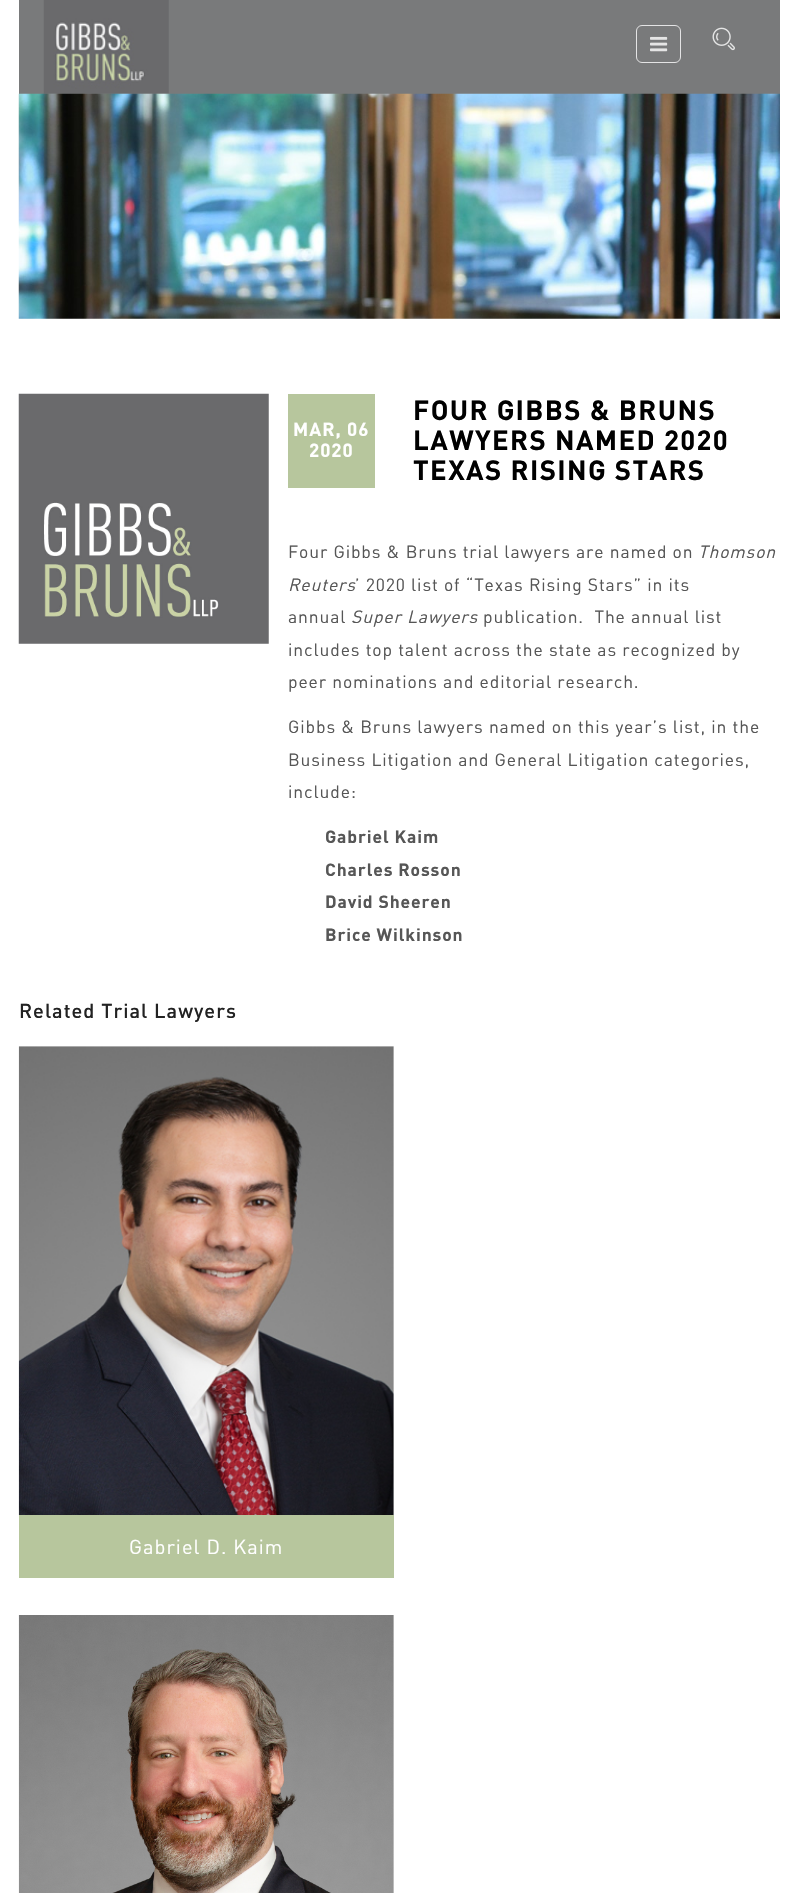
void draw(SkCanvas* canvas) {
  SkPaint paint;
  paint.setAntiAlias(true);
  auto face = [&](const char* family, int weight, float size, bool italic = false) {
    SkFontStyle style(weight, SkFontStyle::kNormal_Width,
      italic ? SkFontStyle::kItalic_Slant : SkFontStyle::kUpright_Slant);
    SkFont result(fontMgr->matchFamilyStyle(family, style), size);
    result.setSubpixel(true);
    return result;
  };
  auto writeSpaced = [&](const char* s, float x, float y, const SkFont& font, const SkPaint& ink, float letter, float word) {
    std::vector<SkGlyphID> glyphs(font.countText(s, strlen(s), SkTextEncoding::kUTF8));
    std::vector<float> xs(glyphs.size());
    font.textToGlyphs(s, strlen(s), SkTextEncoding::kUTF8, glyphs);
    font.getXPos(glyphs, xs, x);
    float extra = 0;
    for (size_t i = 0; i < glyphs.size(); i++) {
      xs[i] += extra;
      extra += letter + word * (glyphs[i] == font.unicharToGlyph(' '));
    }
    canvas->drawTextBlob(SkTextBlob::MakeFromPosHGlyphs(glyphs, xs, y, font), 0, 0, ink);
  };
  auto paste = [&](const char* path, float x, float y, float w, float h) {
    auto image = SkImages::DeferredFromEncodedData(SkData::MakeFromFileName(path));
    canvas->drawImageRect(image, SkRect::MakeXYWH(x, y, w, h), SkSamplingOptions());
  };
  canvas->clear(0xffffffff);
  paint.setColor(0xff797a7b);
  canvas->drawRect(SkRect::MakeXYWH(19, 0, 761, 94), paint);
  paste("img/1.png", 43, 0, 126, 94);
  paint.setStroke(true);
  paint.setStrokeWidth(1);
  paint.setColor(0xffe4e4e5);
  canvas->drawRoundRect(SkRect::MakeXYWH(636.5f, 25.5f, 44, 37), 5.5f, 5.5f, paint);
  paste("img/2.png", 650, 36, 18, 16);
  paste("img/3.png", 712, 27, 23, 24);
  paste("img/4.png", 18, 93, 762, 226);
  paste("img/5.png", 18, 393, 251, 251);
  paint.setStroke(false);
  paint.setColor(0xffb7c69d);
  canvas->drawRect(SkRect::MakeXYWH(288, 394, 87, 94), paint);
  paint.setColor(0xfff0f0f0);
  canvas->drawRect(SkRect::MakeXYWH(19, 1046, 375, 469), paint);
  paste("img/6.png", 18, 1046, 376, 469);
  paint.setColor(0xffb7c69d);
  canvas->drawRect(SkRect::MakeXYWH(19, 1515, 375, 63), paint);
  paint.setColor(0xfff0f0f0);
  canvas->drawRect(SkRect::MakeXYWH(393, 1615, 1, 278), paint);
  paste("img/7.png", 18, 1615, 376, 278);
  auto f0 = face("DIN", 700, 18.75f);
  paint.setColor(0xffffffff);
  writeSpaced("MAR, 06", 293, 436, f0, paint, 1, 0);
  writeSpaced("2020", 309, 457, f0, paint, 1, 0);
  auto f1 = face("DIN", 700, 27.5f);
  paint.setColor(0xff000000);
  {
    const struct { const char* s; float x, y; } items[] = {
      {"FOUR GIBBS & BRUNS", 413, 420},
      {"LAWYERS NAMED 2020", 413, 450},
      {"TEXAS RISING STARS", 413, 480},
    };
    for (auto [s, x, y] : items) {
      writeSpaced(s, x, y, f1, paint, 1.4f, 0);
    }
  }
  auto f2 = face("DIN", 400, 17.5f);
  paint.setColor(0xff565656);
  writeSpaced("Four Gibbs & Bruns trial lawyers are named on", 288, 558, f2, paint, 0.88f, 0);
  auto f3 = face("DIN", 400, 17.5f, true);
  writeSpaced("Thomson", 698, 558, f3, paint, 0.88f, 0);
  writeSpaced("Reuters", 288, 591, f3, paint, 0.88f, 0);
  writeSpaced("’ 2020 list of “Texas Rising Stars” in its", 355, 591, f2, paint, 0.88f, 0);
  writeSpaced("annual", 288, 623, f2, paint, 0.88f, 0);
  writeSpaced("Super Lawyers", 351, 623, f3, paint, 0.88f, 0);
  {
    const struct { const char* s; float x, y; } items[] = {
      {"publication.  The annual list", 483, 623},
      {"includes top talent across the state as recognized by", 288, 656},
      {"peer nominations and editorial research.", 288, 688},
      {"Gibbs & Bruns lawyers named on this year’s list, in the", 288, 733},
      {"Business Litigation and General Litigation categories,", 288, 766},
      {"include:", 288, 798},
    };
    for (auto [s, x, y] : items) {
      writeSpaced(s, x, y, f2, paint, 0.88f, 0);
    }
  }
  auto f4 = face("DIN", 700, 17.5f);
  {
    const struct { const char* s; float x, y; } items[] = {
      {"Gabriel Kaim", 325, 843},
      {"Charles Rosson", 325, 876},
      {"David Sheeren", 325, 908},
      {"Brice Wilkinson", 325, 941},
    };
    for (auto [s, x, y] : items) {
      writeSpaced(s, x, y, f4, paint, 0.88f, 0);
    }
  }
  auto f5 = face("DIN", 500, 20);
  paint.setColor(0xff222222);
  writeSpaced("Related Trial Lawyers", 19, 1018, f5, paint, 1, 0);
  auto f6 = face("DIN", 400, 20);
  paint.setColor(0xffffffff);
  writeSpaced("Gabriel D. Kaim", 129, 1554, f6, paint, 1, 0);
}
